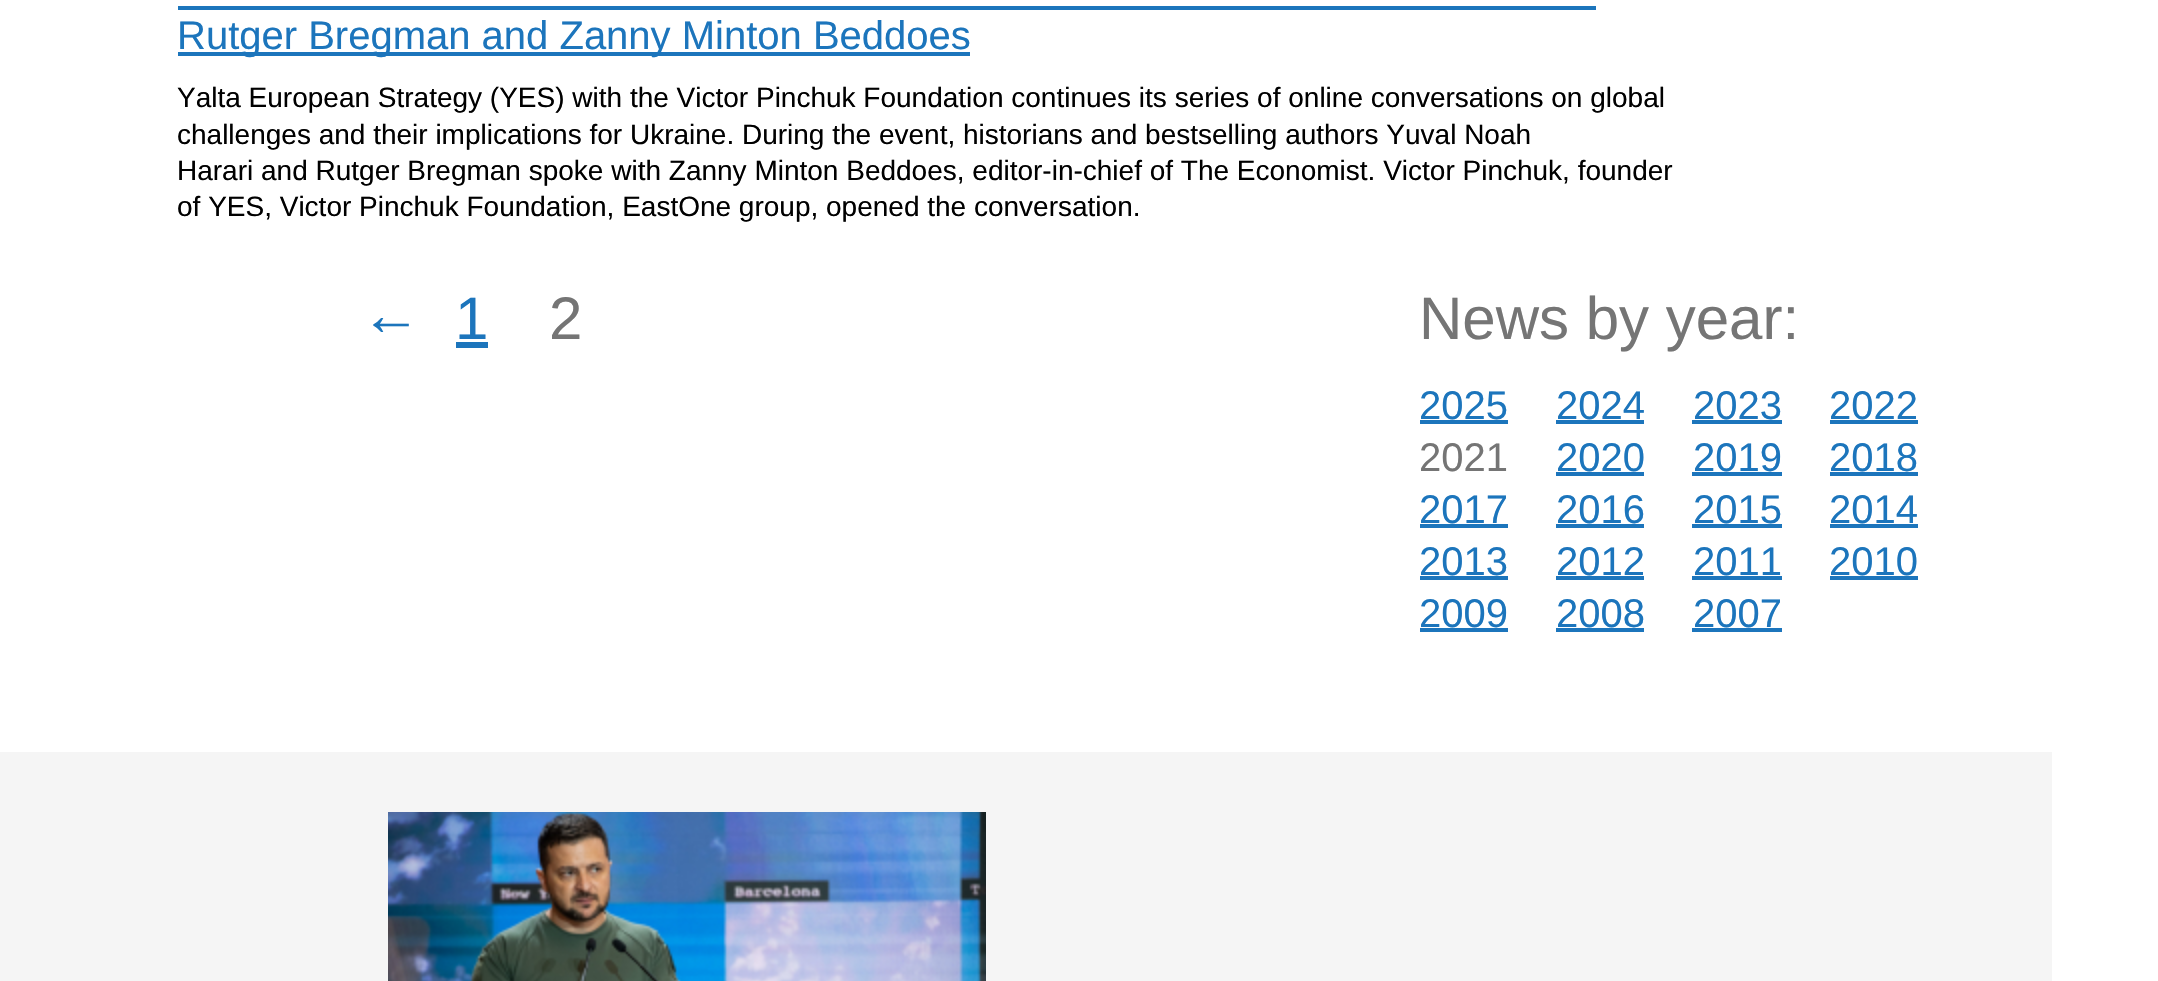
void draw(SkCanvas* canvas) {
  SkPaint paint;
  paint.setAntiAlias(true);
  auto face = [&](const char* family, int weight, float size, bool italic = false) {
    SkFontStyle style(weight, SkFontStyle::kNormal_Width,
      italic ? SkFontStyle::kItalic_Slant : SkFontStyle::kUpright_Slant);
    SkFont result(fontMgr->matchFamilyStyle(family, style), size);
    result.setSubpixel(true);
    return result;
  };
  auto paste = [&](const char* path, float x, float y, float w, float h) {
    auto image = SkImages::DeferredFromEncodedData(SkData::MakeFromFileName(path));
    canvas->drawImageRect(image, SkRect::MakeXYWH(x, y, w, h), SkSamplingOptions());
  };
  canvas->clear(0xffffffff);
  {
    const struct { float x, y, w, h; SkColor color; } items[] = {
      {178, 6, 1418, 4, 0xff1c75bc},
      {178, 52, 792, 4, 0xff1c75bc},
      {456, 342, 32, 6, 0xff1c75bc},
      {1420, 420, 88, 4, 0xff1c75bc},
      {1556, 420, 88, 4, 0xff1c75bc},
      {1692, 420, 90, 4, 0xff1c75bc},
      {1830, 420, 88, 4, 0xff1c75bc},
      {1556, 472, 88, 4, 0xff1c75bc},
      {1692, 472, 90, 4, 0xff1c75bc},
      {1830, 472, 88, 4, 0xff1c75bc},
      {1420, 524, 88, 4, 0xff1c75bc},
      {1556, 524, 88, 4, 0xff1c75bc},
      {1692, 524, 90, 4, 0xff1c75bc},
      {1830, 524, 88, 4, 0xff1c75bc},
      {1420, 576, 88, 4, 0xff1c75bc},
      {1556, 576, 88, 4, 0xff1c75bc},
      {1692, 576, 90, 4, 0xff1c75bc},
      {1830, 576, 88, 4, 0xff1c75bc},
      {1420, 628, 88, 4, 0xff1c75bc},
      {1556, 628, 88, 4, 0xff1c75bc},
      {1692, 628, 90, 4, 0xff1c75bc},
      {0, 752, 2052, 229, 0xfff5f5f5},
    };
    for (auto [x, y, w, h, color] : items) {
      paint.setColor(color);
      canvas->drawRect(SkRect::MakeXYWH(x, y, w, h), paint);
    }
  }
  paste("img/1.png", 388, 812, 598, 169);
  auto f0 = face("Liberation Sans", 400, 40);
  paint.setColor(0xff1c75bc);
  canvas->drawString("Rutger Bregman and Zanny Minton Beddoes", 177, 49, f0, paint);
  auto f1 = face("Liberation Sans", 400, 28);
  paint.setColor(0xff000000);
  {
    const struct { const char* s; float x, y; } items[] = {
      {"Yalta European Strategy (YES) with the Victor Pinchuk Foundation continues its series of online conversations on global", 177, 107},
      {"challenges and their implications for Ukraine. During the event, historians and bestselling authors Yuval Noah", 177, 144},
      {"Harari and Rutger Bregman spoke with Zanny Minton Beddoes, editor-in-chief of The Economist. Victor Pinchuk, founder", 177, 180},
      {"of YES, Victor Pinchuk Foundation, EastOne group, opened the conversation.", 177, 216},
    };
    for (auto [s, x, y] : items) {
      canvas->drawString(s, x, y, f1, paint);
    }
  }
  auto f2 = face("Liberation Sans", 700, 60);
  paint.setColor(0xff1c75bc);
  canvas->drawString("←", 361, 335, f2, paint);
  auto f3 = face("Liberation Sans", 400, 60);
  canvas->drawString("1", 455, 339, f3, paint);
  paint.setColor(0xff757575);
  canvas->drawString("2", 549, 339, f3, paint);
  canvas->drawString("News by year:", 1419, 339, f3, paint);
  paint.setColor(0xff1c75bc);
  {
    const struct { const char* s; float x, y; } items[] = {
      {"2025", 1419, 419},
      {"2024", 1556, 419},
      {"2023", 1693, 419},
      {"2022", 1829, 419},
    };
    for (auto [s, x, y] : items) {
      canvas->drawString(s, x, y, f0, paint);
    }
  }
  paint.setColor(0xff757575);
  canvas->drawString("2021", 1419, 471, f0, paint);
  paint.setColor(0xff1c75bc);
  {
    const struct { const char* s; float x, y; } items[] = {
      {"2020", 1556, 471},
      {"2019", 1693, 471},
      {"2018", 1829, 471},
      {"2017", 1419, 523},
      {"2016", 1556, 523},
      {"2015", 1693, 523},
      {"2014", 1829, 523},
      {"2013", 1419, 575},
      {"2012", 1556, 575},
      {"2011", 1693, 575},
      {"2010", 1829, 575},
      {"2009", 1419, 627},
      {"2008", 1556, 627},
      {"2007", 1693, 627},
    };
    for (auto [s, x, y] : items) {
      canvas->drawString(s, x, y, f0, paint);
    }
  }
}
